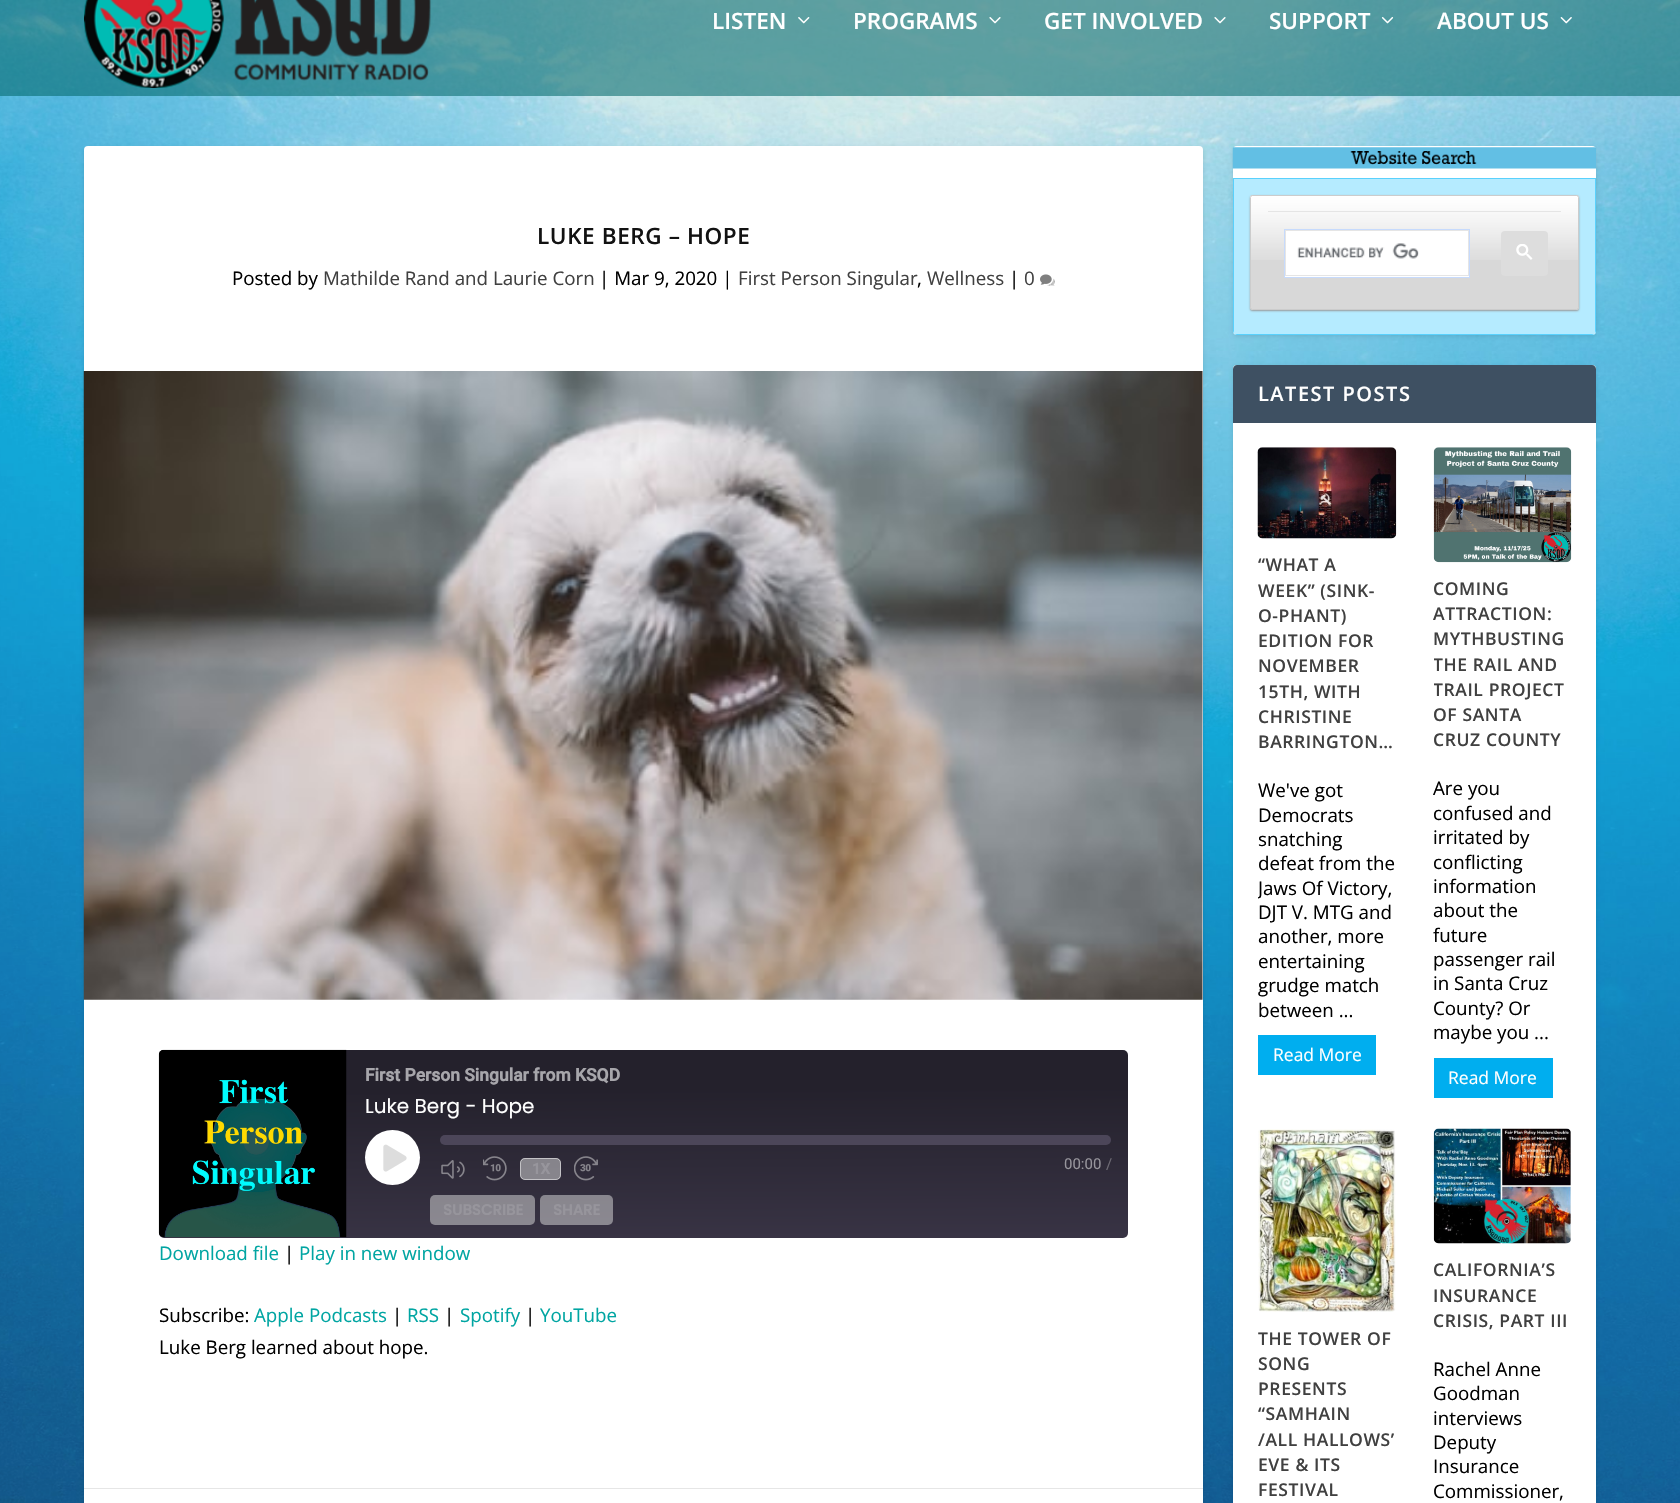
void draw(SkCanvas* canvas) {
  SkPaint paint;
  paint.setAntiAlias(true);
  auto face = [&](const char* family, int weight, float size, bool italic = false) {
    SkFontStyle style(weight, SkFontStyle::kNormal_Width,
      italic ? SkFontStyle::kItalic_Slant : SkFontStyle::kUpright_Slant);
    SkFont result(fontMgr->matchFamilyStyle(family, style), size);
    result.setSubpixel(true);
    return result;
  };
  auto writeSpaced = [&](const char* s, float x, float y, const SkFont& font, const SkPaint& ink, float letter, float word) {
    std::vector<SkGlyphID> glyphs(font.countText(s, strlen(s), SkTextEncoding::kUTF8));
    std::vector<float> xs(glyphs.size());
    font.textToGlyphs(s, strlen(s), SkTextEncoding::kUTF8, glyphs);
    font.getXPos(glyphs, xs, x);
    float extra = 0;
    for (size_t i = 0; i < glyphs.size(); i++) {
      xs[i] += extra;
      extra += letter + word * (glyphs[i] == font.unicharToGlyph(' '));
    }
    canvas->drawTextBlob(SkTextBlob::MakeFromPosHGlyphs(glyphs, xs, y, font), 0, 0, ink);
  };
  auto paste = [&](const char* path, float x, float y, float w, float h) {
    auto image = SkImages::DeferredFromEncodedData(SkData::MakeFromFileName(path));
    canvas->drawImageRect(image, SkRect::MakeXYWH(x, y, w, h), SkSamplingOptions());
  };
  auto shape = [&](const char* data, bool evenOdd = false) {
    SkPath result = *SkParsePath::FromSVGString(data);
    if (evenOdd) result.setFillType(SkPathFillType::kEvenOdd);
    return result;
  };
  canvas->clear(0xffffffff);
  paste("img/1.png", 0, 0, 1680, 1503);
  paint.setColor(0x8f006668);
  canvas->drawRect(SkRect::MakeXYWH(0, 0, 1680, 96), paint);
  paste("img/2.png", 84, 0, 347, 88);
  paste("img/3.png", 798, 17, 12, 7);
  paste("img/4.png", 989, 17, 12, 7);
  paste("img/5.png", 1214, 17, 12, 7);
  paste("img/6.png", 1381, 17, 13, 7);
  paste("img/7.png", 1560, 17, 12, 7);
  paint.setColor(0x1a000000);
  paint.setMaskFilter(SkMaskFilter::MakeBlur(kNormal_SkBlurStyle, 2));
  canvas->drawRoundRect(SkRect::MakeXYWH(84, 148, 1119, 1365), 4, 4, paint);
  paint.setMaskFilter(nullptr);
  paint.setColor(0xffffffff);
  canvas->drawRoundRect(SkRect::MakeXYWH(84, 146, 1119, 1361), 4, 4, paint);
  paste("img/8.png", 1040, 274, 15, 12);
  paste("img/9.png", 83, 371, 1120, 629);
  {
    const SkColor colors[] = {0xff383344, 0xff24212c};
    const float stops[] = {0.01f, 0.78f};
    const SkPoint ends[] = {{644, 1240}, {643, 1047}};
    paint.setShader(SkGradientShader::MakeLinear(ends, colors, stops, 2, SkTileMode::kClamp));
    paint.setAlpha(255);
  }
  canvas->drawRoundRect(SkRect::MakeXYWH(159, 1050, 969, 188), 5, 5, paint);
  paste("img/10.png", 158, 1049, 189, 189);
  paint.setShader(nullptr);
  paint.setColor(0xffffffff);
  canvas->drawCircle(392.5f, 1157.5f, 27.5f, paint);
  paste("img/11.png", 383, 1144, 24, 28);
  paint.setColor(0xff4c4659);
  canvas->drawRoundRect(SkRect::MakeXYWH(440, 1135, 671, 10), 5, 5, paint);
  paste("img/12.png", 441, 1160, 24, 19);
  paste("img/13.png", 483, 1156, 24, 25);
  paint.setColor(0x80dddddd);
  canvas->drawRoundRect(SkRect::MakeXYWH(520, 1158, 41, 22), 5, 5, paint);
  paint.setStroke(true);
  paint.setStrokeWidth(1);
  paint.setColor(0x80ffffff);
  canvas->drawRoundRect(SkRect::MakeXYWH(520.5f, 1158.5f, 40, 21), 4.5f, 4.5f, paint);
  paste("img/14.png", 574, 1156, 24, 25);
  paint.setStroke(false);
  paint.setColor(0x80dddddd);
  canvas->drawRoundRect(SkRect::MakeXYWH(430, 1195, 105, 30), 5, 5, paint);
  canvas->drawRoundRect(SkRect::MakeXYWH(540, 1195, 73, 30), 5, 5, paint);
  paint.setColor(0xffe6e6e6);
  canvas->drawRect(SkRect::MakeXYWH(84, 1488, 1119, 1), paint);
  paint.setColor(0x1a000000);
  paint.setMaskFilter(SkMaskFilter::MakeBlur(kNormal_SkBlurStyle, 2));
  canvas->drawRoundRect(SkRect::MakeXYWH(1233, 148, 363, 188), 4, 4, paint);
  paint.setMaskFilter(nullptr);
  paint.setColor(0xffffffff);
  canvas->drawRoundRect(SkRect::MakeXYWH(1233, 146, 363, 189), 4, 4, paint);
  paste("img/15.png", 1232, 147, 364, 22);
  paint.setColor(0xffb5ebff);
  canvas->drawPath(shape("M1233 178H1596V331C1596 333 1594 335 1592 335H1237C1235 335 1233 333 1233 331Z"), paint);
  paint.setColor(0xff59d1fd);
  canvas->drawPath(shape("M1234 179H1595V334L1596 331V178H1233V331L1234 334ZM1592 335L1595 334H1234L1237 335Z", true), paint);
  paint.setColor(0xff999999);
  paint.setMaskFilter(SkMaskFilter::MakeBlur(kNormal_SkBlurStyle, 1));
  canvas->drawRoundRect(SkRect::MakeXYWH(1250, 196, 329, 115), 2.5f, 2.5f, paint);
  paint.setMaskFilter(nullptr);
  paint.setColor(0xffd8d8d8);
  canvas->drawRoundRect(SkRect::MakeXYWH(1250, 195, 329, 115), 2.5f, 2.5f, paint);
  paste("img/16.png", 1250, 196, 329, 64);
  paint.setStroke(true);
  paint.setColor(0xffcccccc);
  canvas->drawRoundRect(SkRect::MakeXYWH(1250.5f, 195.5f, 328, 114), 2, 2, paint);
  paint.setStroke(false);
  paint.setColor(0xffe5e5e5);
  canvas->drawRect(SkRect::MakeXYWH(1268, 211, 293, 1), paint);
  paint.setColor(0xffdddddd);
  canvas->drawRoundRect(SkRect::MakeXYWH(1501, 231, 47, 45), 4, 4, paint);
  paste("img/17.png", 1516, 244, 17, 16);
  paint.setColor(0xffffffff);
  canvas->drawRect(SkRect::MakeXYWH(1285, 231, 184, 46), paint);
  paint.setStroke(true);
  paint.setColor(0xffc6dafc);
  canvas->drawRect(SkRect::MakeXYWH(1284.5f, 229.5f, 185, 48), paint);
  paint.setStroke(false);
  {
    const struct { float x, y, w, h; SkColor color; } items[] = {
      {1285, 230, 184, 1, 0xffe5e5e5},
      {1468, 230, 1, 46, 0xffe5e5e5},
      {1285, 275, 184, 1, 0xffe5e5e5},
      {1285, 230, 1, 46, 0xffe5e5e5},
    };
    for (auto [x, y, w, h, color] : items) {
      paint.setColor(color);
      canvas->drawRect(SkRect::MakeXYWH(x, y, w, h), paint);
    }
  }
  paste("img/18.png", 1297, 243, 122, 16);
  paint.setColor(0x1a000000);
  paint.setMaskFilter(SkMaskFilter::MakeBlur(kNormal_SkBlurStyle, 2));
  canvas->drawRoundRect(SkRect::MakeXYWH(1233, 366, 363, 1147), 4, 4, paint);
  paint.setMaskFilter(nullptr);
  paint.setColor(0xffffffff);
  canvas->drawRoundRect(SkRect::MakeXYWH(1233, 365, 363, 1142), 4, 4, paint);
  paint.setColor(0xff3e5062);
  canvas->drawPath(shape("M1237 365H1592C1594 365 1596 367 1596 369V423H1233V369C1233 367 1235 365 1237 365Z"), paint);
  paste("img/19.png", 1257, 447, 140, 92);
  paint.setColor(0xff00aeef);
  canvas->drawRect(SkRect::MakeXYWH(1258, 1035, 118, 40), paint);
  paste("img/20.png", 1433, 447, 139, 116);
  canvas->drawRect(SkRect::MakeXYWH(1434, 1058, 119, 40), paint);
  paste("img/21.png", 1258, 1129, 138, 183);
  paste("img/22.png", 1433, 1128, 138, 116);
  auto f0 = face("Open Sans", 600, 22.5f);
  paint.setColor(0xffffffff);
  {
    const struct { const char* s; float x, y; } items[] = {
      {"LISTEN", 712, 29},
      {"PROGRAMS", 853, 29},
      {"GET INVOLVED", 1044, 29},
      {"SUPPORT", 1269, 29},
      {"ABOUT US", 1437, 29},
    };
    for (auto [s, x, y] : items) {
      canvas->drawString(s, x, y, f0, paint);
    }
  }
  paint.setColor(0xff121212);
  writeSpaced("LUKE BERG – HOPE", 537, 244, f0, paint, 0.6f, 0);
  auto f1 = face("Open Sans", 400, 18.75f);
  paint.setColor(0xff000000);
  canvas->drawString("Posted by", 232, 285, f1, paint);
  paint.setColor(0xff404040);
  canvas->drawString("Mathilde Rand and Laurie Corn", 323, 285, f1, paint);
  paint.setColor(0xff000000);
  canvas->drawString("| Mar 9, 2020 |", 599, 285, f1, paint);
  paint.setColor(0xff404040);
  canvas->drawString("First Person Singular", 738, 285, f1, paint);
  paint.setColor(0xff000000);
  canvas->drawString(",", 917, 285, f1, paint);
  paint.setColor(0xff404040);
  canvas->drawString("Wellness", 927, 285, f1, paint);
  paint.setColor(0xff000000);
  canvas->drawString("|", 1009, 285, f1, paint);
  paint.setColor(0xff404040);
  canvas->drawString("0", 1024, 285, f1, paint);
  auto f2 = face("Roboto", 700, 17.5f);
  paint.setColor(0xffa7a6ab);
  canvas->drawString("First Person Singular from KSQD", 365, 1081, f2, paint);
  auto f3 = face("Poppins", 400, 20);
  paint.setColor(0xffffffff);
  canvas->drawString("Luke Berg - Hope", 365, 1113, f3, paint);
  auto f4 = face("Roboto", 700, 15);
  paint.setColor(0xff97959c);
  canvas->drawString("1X", 532, 1174, f4, paint);
  auto f5 = face("Roboto", 400, 15);
  canvas->drawString("00:00", 1064, 1169, f5, paint);
  paint.setColor(0xff6d6a74);
  canvas->drawString("/", 1106, 1169, f5, paint);
  auto f6 = face("Poppins", 700, 15);
  paint.setColor(0xff97959c);
  canvas->drawString("SUBSCRIBE", 443, 1215, f6, paint);
  canvas->drawString("SHARE", 553, 1215, f6, paint);
  paint.setColor(0xff00a5a2);
  canvas->drawString("Download file", 159, 1260, f1, paint);
  paint.setColor(0xff000000);
  canvas->drawString("|", 284, 1260, f1, paint);
  paint.setColor(0xff00a5a2);
  canvas->drawString("Play in new window", 299, 1260, f1, paint);
  paint.setColor(0xff000000);
  canvas->drawString("Subscribe:", 159, 1322, f1, paint);
  paint.setColor(0xff00a5a2);
  canvas->drawString("Apple Podcasts", 254, 1322, f1, paint);
  paint.setColor(0xff000000);
  canvas->drawString("|", 392, 1322, f1, paint);
  paint.setColor(0xff00a5a2);
  canvas->drawString("RSS", 407, 1322, f1, paint);
  paint.setColor(0xff000000);
  canvas->drawString("|", 444, 1322, f1, paint);
  paint.setColor(0xff00a5a2);
  canvas->drawString("Spotify", 460, 1322, f1, paint);
  paint.setColor(0xff000000);
  canvas->drawString("|", 525, 1322, f1, paint);
  paint.setColor(0xff00a5a2);
  canvas->drawString("YouTube", 540, 1322, f1, paint);
  paint.setColor(0xff000000);
  canvas->drawString("Luke Berg learned about hope.", 159, 1354, f1, paint);
  auto f7 = face("Open Sans", 600, 20);
  paint.setColor(0xffffffff);
  writeSpaced("LATEST POSTS", 1258, 401, f7, paint, 1.5f, 0);
  auto f8 = face("Open Sans", 600, 17.5f);
  paint.setColor(0xff404040);
  {
    const struct { const char* s; float x, y; } items[] = {
      {"“WHAT A", 1258, 571},
      {"WEEK” (SINK-", 1258, 597},
      {"O-PHANT)", 1258, 622},
      {"EDITION FOR", 1258, 647},
      {"NOVEMBER", 1258, 672},
      {"15TH, WITH", 1258, 698},
      {"CHRISTINE", 1258, 723},
      {"BARRINGTON…", 1258, 748},
    };
    for (auto [s, x, y] : items) {
      writeSpaced(s, x, y, f8, paint, 0.6f, 0);
    }
  }
  paint.setColor(0xff000000);
  {
    const struct { const char* s; float x, y; } items[] = {
      {"We've got", 1258, 797},
      {"Democrats", 1258, 822},
      {"snatching", 1258, 846},
      {"defeat from the", 1258, 870},
    };
    for (auto [s, x, y] : items) {
      canvas->drawString(s, x, y, f1, paint);
    }
  }
  canvas->save();
  canvas->clipRect(SkRect::MakeXYWH(1258, 448, 138, 640));
  canvas->drawString("Jaws Of Victory,", 1258, 895, f1, paint);
  canvas->restore();
  {
    const struct { const char* s; float x, y; } items[] = {
      {"DJT V. MTG and", 1258, 919},
      {"another, more", 1258, 943},
      {"entertaining", 1258, 968},
      {"grudge match", 1258, 992},
      {"between ...", 1258, 1017},
    };
    for (auto [s, x, y] : items) {
      canvas->drawString(s, x, y, f1, paint);
    }
  }
  auto f9 = face("Open Sans", 400, 17.5f);
  paint.setColor(0xffffffff);
  canvas->drawString("Read More", 1273, 1061, f9, paint);
  paint.setColor(0xff404040);
  {
    const struct { const char* s; float x, y; } items[] = {
      {"COMING", 1433, 595},
      {"ATTRACTION:", 1433, 620},
      {"MYTHBUSTING", 1433, 645},
    };
    for (auto [s, x, y] : items) {
      writeSpaced(s, x, y, f8, paint, 0.6f, 0);
    }
  }
  canvas->save();
  canvas->clipRect(SkRect::MakeXYWH(1434, 448, 137, 662));
  writeSpaced("THE RAIL AND", 1433, 671, f8, paint, 0.6f, 0);
  writeSpaced("TRAIL PROJECT", 1433, 696, f8, paint, 0.6f, 0);
  canvas->restore();
  writeSpaced("OF SANTA", 1433, 721, f8, paint, 0.6f, 0);
  writeSpaced("CRUZ COUNTY", 1433, 746, f8, paint, 0.6f, 0);
  paint.setColor(0xff000000);
  {
    const struct { const char* s; float x, y; } items[] = {
      {"Are you", 1433, 795},
      {"confused and", 1433, 820},
      {"irritated by", 1433, 844},
      {"conflicting", 1433, 869},
      {"information", 1433, 893},
      {"about the", 1433, 917},
      {"future", 1433, 942},
      {"passenger rail", 1433, 966},
      {"in Santa Cruz", 1433, 990},
      {"County? Or", 1433, 1015},
      {"maybe you ...", 1433, 1039},
    };
    for (auto [s, x, y] : items) {
      canvas->drawString(s, x, y, f1, paint);
    }
  }
  paint.setColor(0xffffffff);
  canvas->drawString("Read More", 1448, 1084, f9, paint);
  paint.setColor(0xff404040);
  {
    const struct { const char* s; float x, y; } items[] = {
      {"THE TOWER OF", 1258, 1345},
      {"SONG", 1258, 1370},
      {"PRESENTS", 1258, 1395},
      {"“SAMHAIN", 1258, 1420},
      {"/ALL HALLOWS’", 1258, 1446},
      {"EVE & ITS", 1258, 1471},
      {"FESTIVAL", 1258, 1496},
      {"CALIFORNIA’S", 1433, 1276},
      {"INSURANCE", 1433, 1302},
      {"CRISIS, PART III", 1433, 1327},
    };
    for (auto [s, x, y] : items) {
      writeSpaced(s, x, y, f8, paint, 0.6f, 0);
    }
  }
  paint.setColor(0xff000000);
  {
    const struct { const char* s; float x, y; } items[] = {
      {"Rachel Anne", 1433, 1376},
      {"Goodman", 1433, 1400},
      {"interviews", 1433, 1425},
      {"Deputy", 1433, 1449},
      {"Insurance", 1433, 1473},
      {"Commissioner,", 1433, 1498},
    };
    for (auto [s, x, y] : items) {
      canvas->drawString(s, x, y, f1, paint);
    }
  }
}
